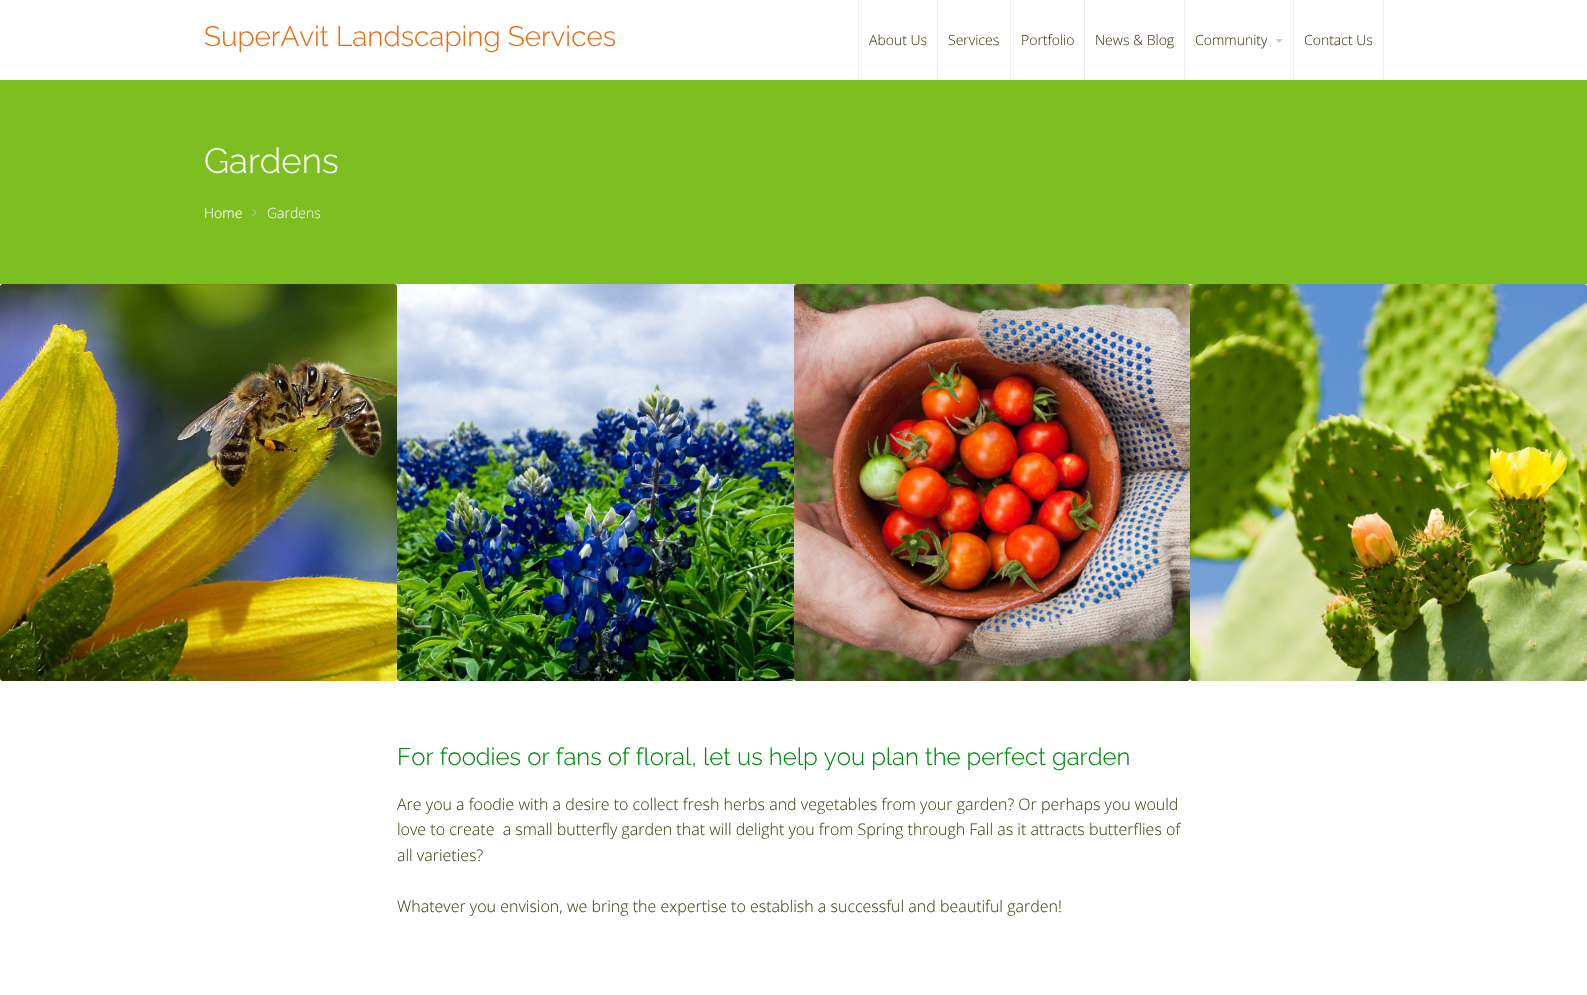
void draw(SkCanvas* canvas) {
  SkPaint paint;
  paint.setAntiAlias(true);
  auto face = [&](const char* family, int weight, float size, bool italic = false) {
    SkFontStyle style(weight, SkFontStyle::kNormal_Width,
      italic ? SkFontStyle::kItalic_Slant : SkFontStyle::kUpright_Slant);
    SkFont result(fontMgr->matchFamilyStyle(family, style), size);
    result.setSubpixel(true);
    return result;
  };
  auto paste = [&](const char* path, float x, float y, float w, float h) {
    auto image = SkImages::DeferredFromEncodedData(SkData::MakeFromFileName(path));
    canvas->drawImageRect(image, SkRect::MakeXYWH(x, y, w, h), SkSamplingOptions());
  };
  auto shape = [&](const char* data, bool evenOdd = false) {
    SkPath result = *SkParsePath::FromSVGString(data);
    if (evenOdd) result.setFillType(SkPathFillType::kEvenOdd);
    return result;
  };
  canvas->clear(0xffffffff);
  {
    const struct { float x, y, w, h; SkColor color; } items[] = {
      {1383, 0, 1, 80, 0xffeeeeee},
      {858, 0, 1, 80, 0xffeeeeee},
      {937, 0, 1, 80, 0xffeeeeee},
      {1010, 0, 1, 80, 0xffeeeeee},
      {1084, 0, 1, 80, 0xffeeeeee},
      {1184, 0, 1, 80, 0xffeeeeee},
    };
    for (auto [x, y, w, h, color] : items) {
      paint.setColor(color);
      canvas->drawRect(SkRect::MakeXYWH(x, y, w, h), paint);
    }
  }
  paint.setColor(0xffcfcfcf);
  canvas->drawPath(shape("M1275 39H1283L1279 43Z"), paint);
  paint.setColor(0xffeeeeee);
  canvas->drawRect(SkRect::MakeXYWH(1293, 0, 1, 80), paint);
  paint.setColor(0xff7dbe21);
  canvas->drawRect(SkRect::MakeXYWH(0, 80, 1587, 204), paint);
  paste("img/1.png", 252, 208, 5, 9);
  paste("img/2.png", 0, 284, 397, 397);
  paste("img/3.png", 397, 284, 397, 397);
  paste("img/4.png", 794, 284, 396, 397);
  paste("img/5.png", 1190, 284, 397, 397);
  auto f0 = face("Raleway", 100, 28);
  paint.setColor(0xffed690e);
  canvas->drawString("SuperAvit Landscaping Services", 204, 46, f0, paint);
  auto f1 = face("Open Sans", 300, 14);
  paint.setColor(0xff494122);
  {
    const struct { const char* s; float x, y; } items[] = {
      {"About Us", 869, 45},
      {"Services", 948, 45},
      {"Portfolio", 1021, 45},
      {"News & Blog", 1095, 45},
      {"Community", 1195, 45},
      {"Contact Us", 1304, 45},
    };
    for (auto [s, x, y] : items) {
      canvas->drawString(s, x, y, f1, paint);
    }
  }
  auto f2 = face("Raleway", 100, 35);
  paint.setColor(0xffffffff);
  canvas->drawString("Gardens", 204, 173, f2, paint);
  canvas->drawString("Home", 204, 218, f1, paint);
  paint.setColor(0xffeeeeee);
  canvas->drawString("Gardens", 267, 218, f1, paint);
  auto f3 = face("Raleway", 100, 24);
  paint.setColor(0xff00880a);
  canvas->drawString("For foodies or fans of floral, let us help you plan the perfect garden", 397, 765, f3, paint);
  auto f4 = face("Open Sans", 300, 16);
  paint.setColor(0xff49491f);
  {
    const struct { const char* s; float x, y; } items[] = {
      {"Are you a foodie with a desire to collect fresh herbs and vegetables from your garden? Or perhaps you would", 397, 810},
      {"love to create  a small butterfly garden that will delight you from Spring through Fall as it attracts butterflies of", 397, 835},
      {"all varieties?", 397, 861},
      {"Whatever you envision, we bring the expertise to establish a successful and beautiful garden!", 397, 912},
    };
    for (auto [s, x, y] : items) {
      canvas->drawString(s, x, y, f4, paint);
    }
  }
}
